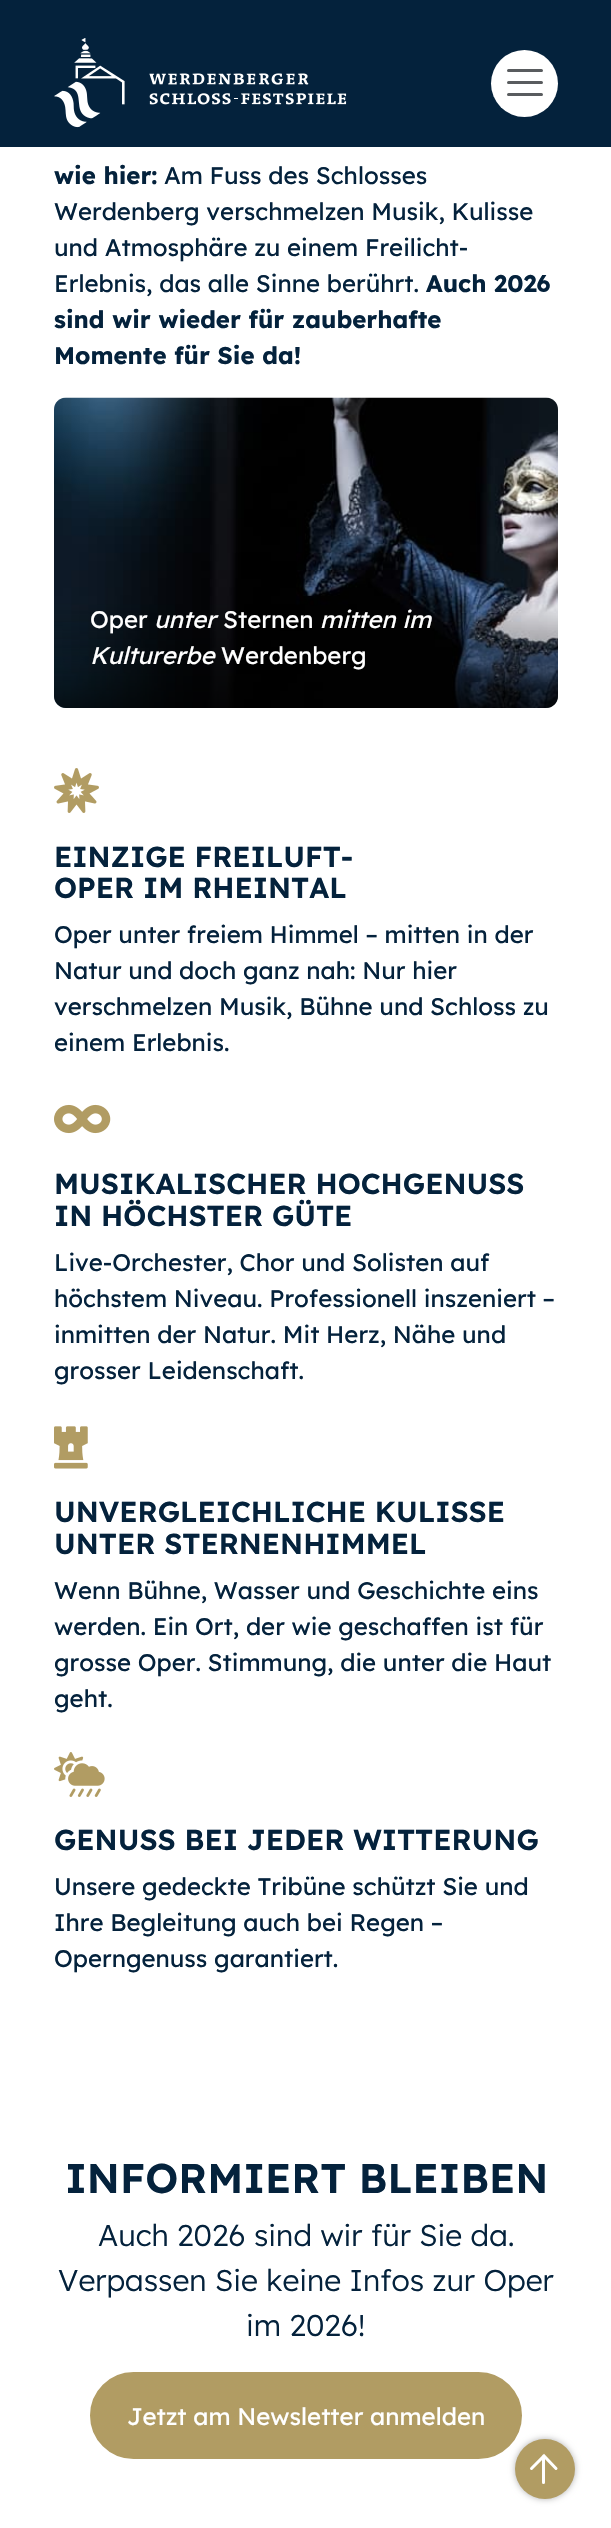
void draw(SkCanvas* canvas) {
  SkPaint paint;
  paint.setAntiAlias(true);
  auto face = [&](const char* family, int weight, float size, bool italic = false) {
    SkFontStyle style(weight, SkFontStyle::kNormal_Width,
      italic ? SkFontStyle::kItalic_Slant : SkFontStyle::kUpright_Slant);
    SkFont result(fontMgr->matchFamilyStyle(family, style), size);
    result.setSubpixel(true);
    return result;
  };
  auto paste = [&](const char* path, float x, float y, float w, float h) {
    auto image = SkImages::DeferredFromEncodedData(SkData::MakeFromFileName(path));
    canvas->drawImageRect(image, SkRect::MakeXYWH(x, y, w, h), SkSamplingOptions());
  };
  auto shape = [&](const char* data, bool evenOdd = false) {
    SkPath result = *SkParsePath::FromSVGString(data);
    if (evenOdd) result.setFillType(SkPathFillType::kEvenOdd);
    return result;
  };
  canvas->clear(0xffffffff);
  paint.setColor(0xff04223c);
  canvas->drawRect(SkRect::MakeXYWH(0, 0, 611, 147), paint);
  paste("img/1.png", 54, 38, 293, 90);
  paint.setColor(0xffffffff);
  canvas->drawCircle(524.5f, 83.5f, 33.5f, paint);
  paint.setStroke(true);
  paint.setStrokeWidth(3);
  paint.setStrokeCap(SkPaint::kRound_Cap);
  paint.setColor(0xff595c5f);
  canvas->drawPath(shape("M508.5 70.5H541.5M508.5 82.5H541.5M508.5 94.5H541.5"), paint);
  paste("img/2.png", 54, 397, 504, 311);
  paint.setStroke(false);
  {
    const SkColor colors[] = {0x00000000, 0xb3000000};
    const float stops[] = {0.05f, 1};
    const SkPoint ends[] = {{306, 594}, {306, 708}};
    paint.setShader(SkGradientShader::MakeLinear(ends, colors, stops, 2, SkTileMode::kClamp));
    paint.setAlpha(255);
  }
  canvas->drawPath(shape("M54 594H558V696C558 702.5 552.5 708 546 708H66C59.5 708 54 702.5 54 696Z"), paint);
  paste("img/3.png", 54, 768, 45, 45);
  paste("img/4.png", 54, 1104, 57, 30);
  paste("img/5.png", 54, 1426, 34, 43);
  paste("img/6.png", 54, 1752, 51, 45);
  paint.setShader(nullptr);
  paint.setColor(0xffb19c63);
  canvas->drawRoundRect(SkRect::MakeXYWH(91, 2373, 430, 85), 42.5f, 42.5f, paint);
  paint.setStroke(true);
  paint.setStrokeWidth(2);
  paint.setStrokeCap(SkPaint::kButt_Cap);
  canvas->drawRoundRect(SkRect::MakeXYWH(91, 2373, 430, 85), 42.5f, 42.5f, paint);
  paint.setStroke(false);
  paint.setColor(0x4d000000);
  paint.setMaskFilter(SkMaskFilter::MakeBlur(kNormal_SkBlurStyle, 3));
  canvas->drawRoundRect(SkRect::MakeXYWH(515, 2439, 60, 60), 30, 30, paint);
  paint.setMaskFilter(nullptr);
  paint.setColor(0xffb19c63);
  canvas->drawCircle(545, 2469, 30, paint);
  paint.setStroke(true);
  paint.setStrokeWidth(3);
  paint.setStrokeCap(SkPaint::kRound_Cap);
  paint.setColor(0xffffffff);
  canvas->drawPath(shape("M531.5 2468.5L544 2456L556 2468.5M543.5 2456V2482.5"), paint);
  auto f0 = face("Lexend", 700, 24);
  paint.setStroke(false);
  paint.setColor(0xff04223c);
  canvas->drawString("wie hier:", 54, 184, f0, paint);
  auto f1 = face("Lexend", 400, 24);
  {
    const struct { const char* s; float x, y; } items[] = {
      {"Am Fuss des Schlosses", 164, 184},
      {"Werdenberg verschmelzen Musik, Kulisse", 54, 220},
      {"und Atmosphäre zu einem Freilicht-", 54, 256},
      {"Erlebnis, das alle Sinne berührt.", 54, 292},
    };
    for (auto [s, x, y] : items) {
      canvas->drawString(s, x, y, f1, paint);
    }
  }
  {
    const struct { const char* s; float x, y; } items[] = {
      {"Auch 2026", 426, 292},
      {"sind wir wieder für zauberhafte", 54, 328},
      {"Momente für Sie da!", 54, 364},
    };
    for (auto [s, x, y] : items) {
      canvas->drawString(s, x, y, f0, paint);
    }
  }
  paint.setColor(0xffffffff);
  canvas->drawString("Oper", 90, 628, f1, paint);
  auto f2 = face("Lexend", 400, 24, true);
  canvas->drawString("unter", 154, 628, f2, paint);
  canvas->drawString("Sternen", 223, 628, f1, paint);
  canvas->drawString("mitten im", 320, 628, f2, paint);
  canvas->drawString("Kulturerbe", 90, 664, f2, paint);
  canvas->drawString("Werdenberg", 221, 664, f1, paint);
  auto f3 = face("Lexend", 600, 28.75f);
  paint.setColor(0xff04223c);
  canvas->drawString("EINZIGE FREILUFT-", 54, 867, f3, paint);
  canvas->drawString("OPER IM RHEINTAL", 54, 898, f3, paint);
  {
    const struct { const char* s; float x, y; } items[] = {
      {"Oper unter freiem Himmel – mitten in der", 54, 943},
      {"Natur und doch ganz nah: Nur hier", 54, 979},
      {"verschmelzen Musik, Bühne und Schloss zu", 54, 1015},
      {"einem Erlebnis.", 54, 1051},
    };
    for (auto [s, x, y] : items) {
      canvas->drawString(s, x, y, f1, paint);
    }
  }
  canvas->drawString("MUSIKALISCHER HOCHGENUSS", 54, 1194, f3, paint);
  canvas->drawString("IN HÖCHSTER GÜTE", 54, 1226, f3, paint);
  {
    const struct { const char* s; float x, y; } items[] = {
      {"Live-Orchester, Chor und Solisten auf", 54, 1271},
      {"höchstem Niveau. Professionell inszeniert –", 54, 1307},
      {"inmitten der Natur. Mit Herz, Nähe und", 54, 1343},
      {"grosser Leidenschaft.", 54, 1379},
    };
    for (auto [s, x, y] : items) {
      canvas->drawString(s, x, y, f1, paint);
    }
  }
  canvas->drawString("UNVERGLEICHLICHE KULISSE", 54, 1522, f3, paint);
  canvas->drawString("UNTER STERNENHIMMEL", 54, 1554, f3, paint);
  {
    const struct { const char* s; float x, y; } items[] = {
      {"Wenn Bühne, Wasser und Geschichte eins", 54, 1599},
      {"werden. Ein Ort, der wie geschaffen ist für", 54, 1635},
      {"grosse Oper. Stimmung, die unter die Haut", 54, 1671},
      {"geht.", 54, 1707},
    };
    for (auto [s, x, y] : items) {
      canvas->drawString(s, x, y, f1, paint);
    }
  }
  canvas->drawString("GENUSS BEI JEDER WITTERUNG", 54, 1850, f3, paint);
  {
    const struct { const char* s; float x, y; } items[] = {
      {"Unsere gedeckte Tribüne schützt Sie und", 54, 1895},
      {"Ihre Begleitung auch bei Regen –", 54, 1931},
      {"Operngenuss garantiert.", 54, 1967},
    };
    for (auto [s, x, y] : items) {
      canvas->drawString(s, x, y, f1, paint);
    }
  }
  auto f4 = face("Lexend", 600, 41.25f);
  canvas->drawString("INFORMIERT BLEIBEN", 65, 2193, f4, paint);
  auto f5 = face("Lexend", 300, 30);
  {
    const struct { const char* s; float x, y; } items[] = {
      {"Auch 2026 sind wir für Sie da.", 98, 2246},
      {"Verpassen Sie keine Infos zur Oper", 58, 2291},
      {"im 2026!", 246, 2336},
    };
    for (auto [s, x, y] : items) {
      canvas->drawString(s, x, y, f5, paint);
    }
  }
  paint.setColor(0xffffffff);
  canvas->drawString("Jetzt am Newsletter anmelden", 127, 2425, f1, paint);
}
